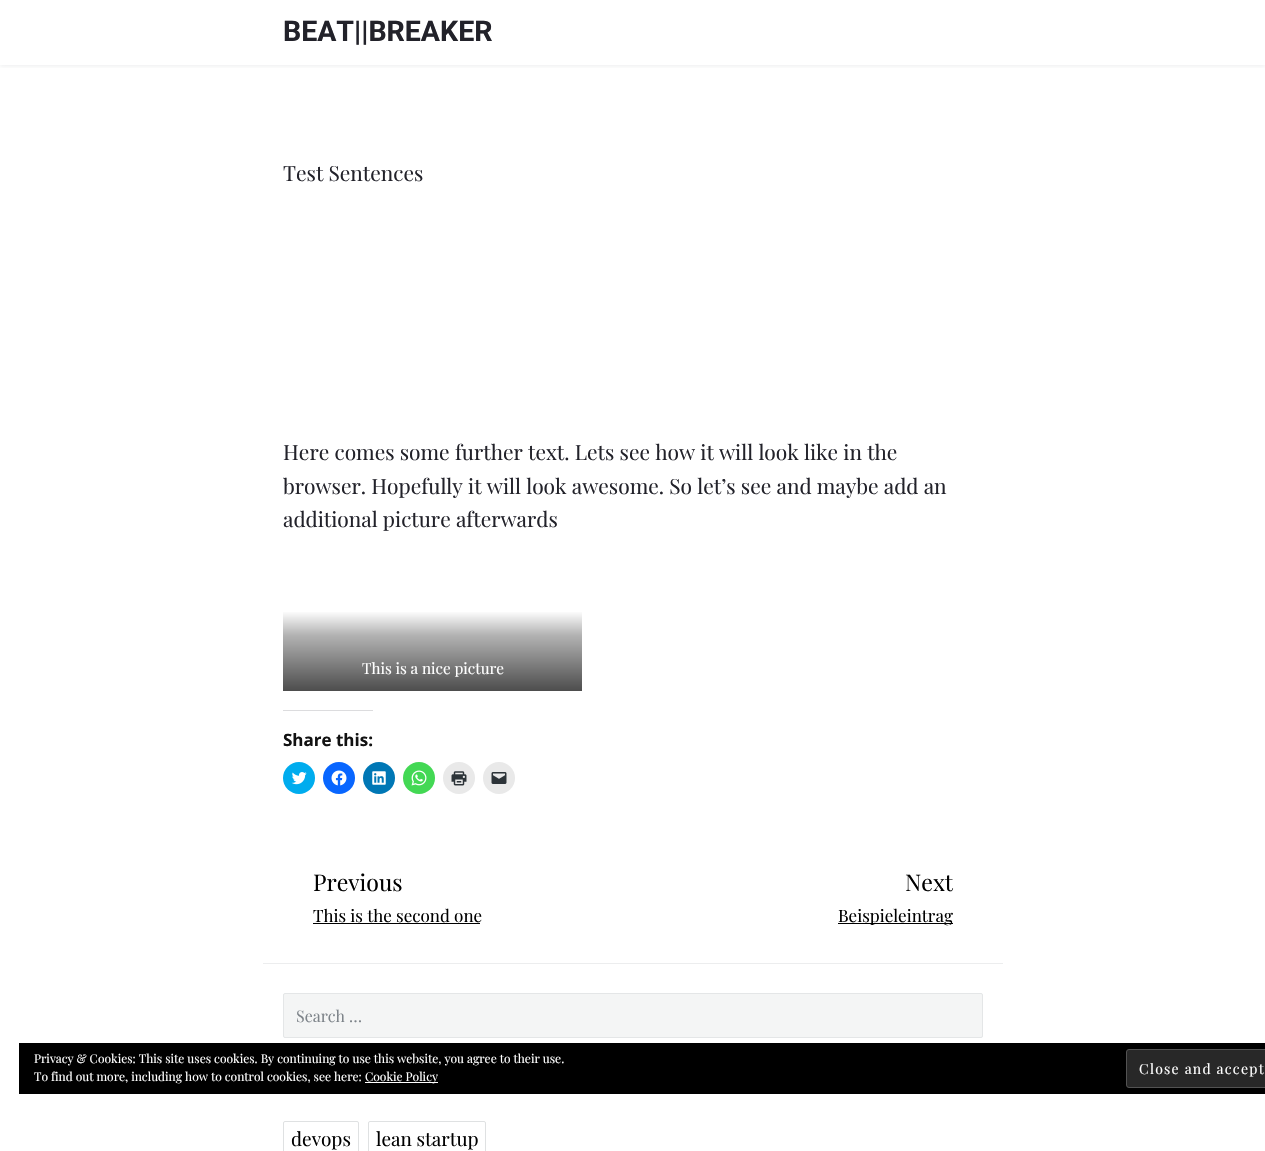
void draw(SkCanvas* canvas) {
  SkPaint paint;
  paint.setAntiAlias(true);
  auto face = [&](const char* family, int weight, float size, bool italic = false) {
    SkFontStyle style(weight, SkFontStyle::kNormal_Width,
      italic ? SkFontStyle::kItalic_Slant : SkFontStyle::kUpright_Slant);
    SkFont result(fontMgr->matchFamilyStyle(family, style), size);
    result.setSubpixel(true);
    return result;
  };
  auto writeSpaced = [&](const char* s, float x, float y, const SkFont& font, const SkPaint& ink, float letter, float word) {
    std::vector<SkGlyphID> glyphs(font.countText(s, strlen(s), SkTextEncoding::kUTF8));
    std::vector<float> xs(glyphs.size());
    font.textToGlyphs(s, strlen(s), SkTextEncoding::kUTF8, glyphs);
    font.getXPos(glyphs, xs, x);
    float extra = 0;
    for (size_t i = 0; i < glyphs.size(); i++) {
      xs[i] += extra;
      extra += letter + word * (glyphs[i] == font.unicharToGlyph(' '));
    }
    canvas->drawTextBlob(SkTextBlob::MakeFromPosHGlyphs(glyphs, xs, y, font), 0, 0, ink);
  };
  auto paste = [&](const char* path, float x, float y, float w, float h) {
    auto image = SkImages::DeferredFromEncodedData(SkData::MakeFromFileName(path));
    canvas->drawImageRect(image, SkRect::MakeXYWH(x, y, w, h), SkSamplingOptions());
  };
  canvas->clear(0xffffffff);
  canvas->save();
  canvas->clipRect(SkRect::MakeXYWH(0, 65, 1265, 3));
  paint.setColor(0x17273740);
  paint.setMaskFilter(SkMaskFilter::MakeBlur(kNormal_SkBlurStyle, 2.5f));
  canvas->drawRect(SkRect::MakeXYWH(0, 1, 1265, 65), paint);
  paint.setMaskFilter(nullptr);
  canvas->restore();
  {
    const SkColor colors[] = {0xff4d4d4d, 0xffb3b3b3, 0xffffffff};
    const float stops[] = {0, 0.7f, 1};
    const SkPoint ends[] = {{433, 691}, {433, 611}};
    paint.setShader(SkGradientShader::MakeLinear(ends, colors, stops, 3, SkTileMode::kClamp));
    paint.setAlpha(255);
  }
  canvas->drawRect(SkRect::MakeXYWH(283, 612, 299, 79), paint);
  paint.setShader(nullptr);
  paint.setColor(0xffdcdcde);
  canvas->drawRect(SkRect::MakeXYWH(283, 710, 90, 1), paint);
  paint.setColor(0xff00acee);
  canvas->drawCircle(299, 778, 16, paint);
  paste("img/1.png", 291, 772, 16, 13);
  paint.setColor(0xff0866ff);
  canvas->drawCircle(339, 778, 16, paint);
  paste("img/2.png", 331, 770, 16, 16);
  paint.setColor(0xff0077b5);
  canvas->drawCircle(379, 778, 16, paint);
  paste("img/3.png", 372, 771, 14, 14);
  paint.setColor(0xff43d854);
  canvas->drawCircle(419, 778, 16, paint);
  paste("img/4.png", 411, 770, 16, 16);
  paint.setColor(0xffe9e9e9);
  canvas->drawCircle(459, 778, 16, paint);
  paste("img/5.png", 451, 771, 16, 15);
  canvas->drawCircle(499, 778, 16, paint);
  paste("img/6.png", 491, 772, 16, 12);
  {
    const struct { float x, y, w, h; SkColor color; } items[] = {
      {313, 923, 167, 1, 0xff000000},
      {838, 923, 115, 1, 0xff000000},
      {263, 963, 740, 1, 0xffecedee},
    };
    for (auto [x, y, w, h, color] : items) {
      paint.setColor(color);
      canvas->drawRect(SkRect::MakeXYWH(x, y, w, h), paint);
    }
  }
  paint.setColor(0xfff4f5f5);
  canvas->drawRoundRect(SkRect::MakeXYWH(283.5f, 993.5f, 699, 44), 1.5f, 1.5f, paint);
  paint.setStroke(true);
  paint.setStrokeWidth(1);
  paint.setColor(0xffe4e6e7);
  canvas->drawRoundRect(SkRect::MakeXYWH(283.5f, 993.5f, 699, 44), 1.5f, 1.5f, paint);
  paint.setStroke(false);
  paint.setColor(0xff000000);
  canvas->drawRect(SkRect::MakeXYWH(19, 1043, 1246, 51), paint);
  paint.setColor(0xffffffff);
  canvas->drawRect(SkRect::MakeXYWH(365, 1082, 73, 1), paint);
  paint.setColor(0xff282828);
  canvas->drawRoundRect(SkRect::MakeXYWH(1126.5f, 1049.5f, 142, 38), 2.5f, 2.5f, paint);
  paint.setStroke(true);
  paint.setColor(0xff535353);
  canvas->drawRoundRect(SkRect::MakeXYWH(1126.5f, 1049.5f, 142, 38), 2.5f, 2.5f, paint);
  paint.setColor(0xffdfe1e2);
  canvas->drawRoundRect(SkRect::MakeXYWH(283.5f, 1121.5f, 75, 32), 1.5f, 1.5f, paint);
  canvas->drawRoundRect(SkRect::MakeXYWH(368.5f, 1121.5f, 117, 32), 1.5f, 1.5f, paint);
  auto f0 = face("Roboto", 700, 28.5f);
  paint.setStroke(false);
  paint.setColor(0xff22222a);
  canvas->drawString("BEAT||BREAKER", 283, 41, f0, paint);
  auto f1 = face("Playfair Display", 400, 20.9f);
  {
    const struct { const char* s; float x, y; } items[] = {
      {"Test Sentences", 283, 181},
      {"Here comes some further text. Lets see how it will look like in the", 283, 460},
      {"browser. Hopefully it will look awesome. So let’s see and maybe add an", 283, 494},
      {"additional picture afterwards", 283, 527},
    };
    for (auto [s, x, y] : items) {
      canvas->drawString(s, x, y, f1, paint);
    }
  }
  auto f2 = face("Playfair Display", 400, 15.25f);
  paint.setColor(0xffffffff);
  canvas->drawString("This is a nice picture", 362, 674, f2, paint);
  auto f3 = face("Open Sans", 700, 17);
  paint.setColor(0xff121212);
  canvas->drawString("Share this:", 283, 746, f3, paint);
  auto f4 = face("Playfair Display", 400, 23);
  paint.setColor(0xff000000);
  canvas->drawString("Previous", 313, 891, f4, paint);
  auto f5 = face("Playfair Display", 400, 17);
  canvas->drawString("This is the second one", 313, 922, f5, paint);
  canvas->drawString("Next", 905, 891, f4, paint);
  canvas->drawString("Beispieleintrag", 838, 922, f5, paint);
  auto f6 = face("Playfair Display", 400, 16);
  paint.setColor(0xff7e848a);
  canvas->drawString("Search …", 296, 1022, f6, paint);
  auto f7 = face("Playfair Display", 400, 12);
  paint.setColor(0xffffffff);
  {
    const struct { const char* s; float x, y; } items[] = {
      {"Privacy & Cookies: This site uses cookies. By continuing to use this website, you agree to their use.", 34, 1063},
      {"To find out more, including how to control cookies, see here:", 34, 1081},
      {"Cookie Policy", 365, 1081},
    };
    for (auto [s, x, y] : items) {
      canvas->drawString(s, x, y, f7, paint);
    }
  }
  auto f8 = face("Playfair Display", 400, 14);
  writeSpaced("Close and accept", 1139, 1074, f8, paint, 1.25f, 0);
  auto f9 = face("Playfair Display", 400, 19);
  paint.setColor(0xff000000);
  canvas->drawString("devops", 291, 1146, f9, paint);
  canvas->drawString("lean startup", 376, 1146, f9, paint);
}
